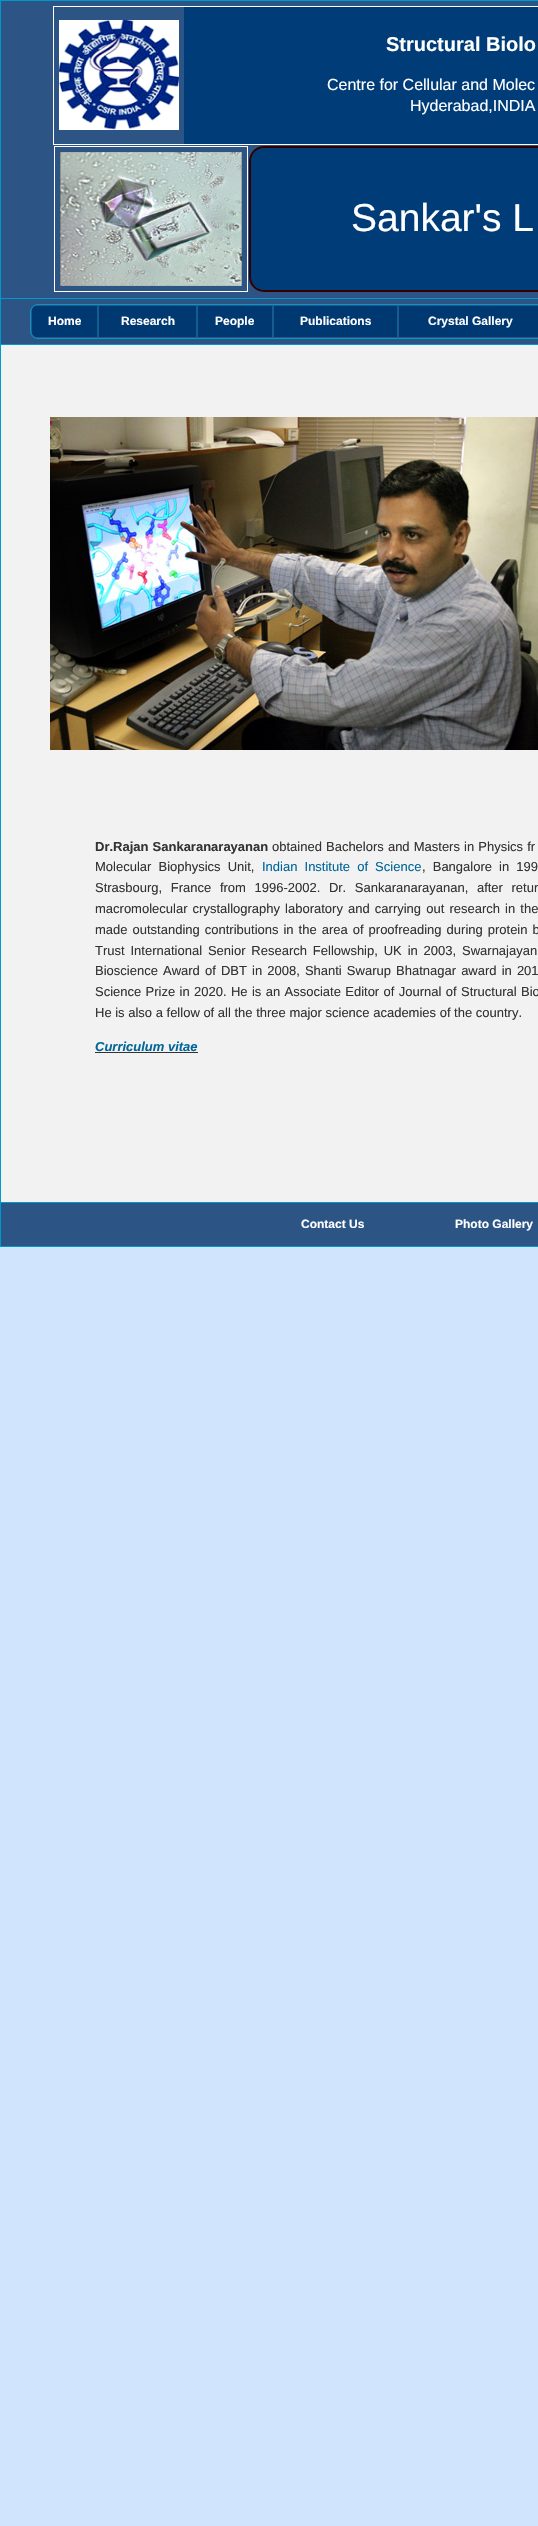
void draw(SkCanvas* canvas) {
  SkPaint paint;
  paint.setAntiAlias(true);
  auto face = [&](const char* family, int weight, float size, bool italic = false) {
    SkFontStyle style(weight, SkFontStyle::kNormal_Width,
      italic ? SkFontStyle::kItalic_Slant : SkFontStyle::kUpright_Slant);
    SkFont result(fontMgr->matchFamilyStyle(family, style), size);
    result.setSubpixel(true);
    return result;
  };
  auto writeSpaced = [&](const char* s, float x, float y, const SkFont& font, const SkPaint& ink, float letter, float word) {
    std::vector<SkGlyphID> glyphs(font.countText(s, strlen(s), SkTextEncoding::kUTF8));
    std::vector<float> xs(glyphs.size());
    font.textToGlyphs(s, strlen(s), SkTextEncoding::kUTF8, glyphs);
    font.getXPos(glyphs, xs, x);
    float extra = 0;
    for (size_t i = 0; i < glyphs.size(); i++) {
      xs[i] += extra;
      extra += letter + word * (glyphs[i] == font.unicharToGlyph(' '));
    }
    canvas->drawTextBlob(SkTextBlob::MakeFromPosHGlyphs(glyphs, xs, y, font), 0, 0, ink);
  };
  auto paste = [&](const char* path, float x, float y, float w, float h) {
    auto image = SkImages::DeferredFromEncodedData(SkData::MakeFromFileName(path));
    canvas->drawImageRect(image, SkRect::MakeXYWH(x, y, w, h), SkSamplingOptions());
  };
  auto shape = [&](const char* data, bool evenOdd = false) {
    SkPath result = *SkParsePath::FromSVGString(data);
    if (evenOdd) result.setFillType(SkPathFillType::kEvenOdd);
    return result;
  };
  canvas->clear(0xffd0e4fe);
  paint.setColor(0xff0099cc);
  canvas->drawRect(SkRect::MakeXYWH(0, 0, 538, 1247), paint);
  paint.setColor(0xff2c5485);
  canvas->drawRect(SkRect::MakeXYWH(1, 1, 537, 297), paint);
  paint.setStroke(true);
  paint.setStrokeWidth(1);
  paint.setColor(0xffffffff);
  canvas->drawRect(SkRect::MakeXYWH(53.5f, 6.5f, 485, 138), paint);
  paste("img/1.png", 59, 20, 120, 110);
  paint.setStroke(false);
  paint.setColor(0xff003c77);
  canvas->drawRect(SkRect::MakeXYWH(184, 7, 354, 137), paint);
  paint.setStroke(true);
  paint.setColor(0xffffffff);
  canvas->drawRect(SkRect::MakeXYWH(54.5f, 146.5f, 193, 145), paint);
  paste("img/2.png", 60, 152, 182, 134);
  paint.setStroke(false);
  paint.setColor(0xff003c77);
  canvas->drawRoundRect(SkRect::MakeXYWH(250, 147, 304, 144), 14, 14, paint);
  paint.setStroke(true);
  paint.setStrokeWidth(2);
  paint.setColor(0xff330000);
  canvas->drawRoundRect(SkRect::MakeXYWH(250, 147, 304, 144), 14, 14, paint);
  paint.setStroke(false);
  paint.setColor(0xff2c5485);
  canvas->drawRect(SkRect::MakeXYWH(1, 299, 537, 45), paint);
  paint.setStroke(true);
  paint.setStrokeWidth(1);
  paint.setColor(0xff0099cc);
  canvas->drawRoundRect(SkRect::MakeXYWH(30.5f, 304.5f, 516, 34), 7.5f, 7.5f, paint);
  paint.setStroke(false);
  paint.setColor(0xff003871);
  canvas->drawPath(shape("M37 306H98V337H37C34 337 32 335 32 332V311C32 308 34 306 37 306Z"), paint);
  {
    const struct { float x, y, w, h; SkColor color; } items[] = {
      {97, 306, 1, 31, 0xff006699},
      {99, 306, 97, 31, 0xff003871},
      {196, 306, 1, 31, 0xff006699},
      {198, 306, 74, 31, 0xff003871},
      {272, 306, 1, 31, 0xff006699},
      {274, 306, 123, 31, 0xff003871},
      {397, 306, 1, 31, 0xff006699},
      {399, 306, 139, 31, 0xff003871},
      {1, 345, 537, 857, 0xfff2f2f2},
    };
    for (auto [x, y, w, h, color] : items) {
      paint.setColor(color);
      canvas->drawRect(SkRect::MakeXYWH(x, y, w, h), paint);
    }
  }
  paste("img/3.png", 50, 417, 488, 333);
  paint.setColor(0xff333333);
  canvas->drawRect(SkRect::MakeXYWH(95, 1052, 103, 1), paint);
  paint.setColor(0xff2c5485);
  canvas->drawRect(SkRect::MakeXYWH(1, 1203, 537, 43), paint);
  auto f0 = face("Liberation Sans", 700, 20);
  paint.setColor(0xffffffff);
  canvas->drawString("Structural Biolo", 386, 51, f0, paint);
  auto f1 = face("Liberation Sans", 400, 16);
  canvas->drawString("Centre for Cellular and Molec", 327, 90, f1, paint);
  canvas->drawString("Hyderabad,INDIA", 410, 111, f1, paint);
  auto f2 = face("Liberation Sans", 400, 39);
  canvas->drawString("Sankar's L", 351, 231, f2, paint);
  auto f3 = face("Liberation Sans", 700, 12);
  {
    const struct { const char* s; float x, y; } items[] = {
      {"Home", 48, 325},
      {"Research", 121, 325},
      {"People", 215, 325},
      {"Publications", 300, 325},
      {"Crystal Gallery", 428, 325},
    };
    for (auto [s, x, y] : items) {
      canvas->drawString(s, x, y, f3, paint);
    }
  }
  auto f4 = face("Liberation Sans", 700, 13);
  paint.setColor(0xff333333);
  writeSpaced("Dr.Rajan Sankaranarayanan", 95, 851, f4, paint, 0, 0.5f);
  auto f5 = face("Liberation Sans", 400, 13);
  writeSpaced("obtained Bachelors and Masters in Physics fr", 272, 851, f5, paint, 0, 0.5f);
  writeSpaced("Molecular Biophysics Unit,", 95, 871, f5, paint, 0, 3.5f);
  paint.setColor(0xff006699);
  writeSpaced("Indian Institute of Science", 262, 871, f5, paint, 0, 3.5f);
  paint.setColor(0xff333333);
  writeSpaced(", Bangalore in 199", 422, 871, f5, paint, 0, 3.5f);
  writeSpaced("Strasbourg, France from 1996-2002. Dr. Sankaranarayanan, after retur", 95, 892, f5, paint, 0, 5);
  writeSpaced("macromolecular crystallography laboratory and carrying out research in the", 95, 913, f5, paint, 0, 1.5f);
  writeSpaced("made outstanding contributions in the area of proofreading during protein b", 95, 934, f5, paint, 0, 1.4f);
  writeSpaced("Trust International Senior Research Fellowship, UK in 2003, Swarnajayan", 95, 955, f5, paint, 0, 2.25f);
  writeSpaced("Bioscience Award of DBT in 2008, Shanti Swarup Bhatnagar award in 201", 95, 975, f5, paint, 0, 1.5f);
  writeSpaced("Science Prize in 2020. He is an Associate Editor of Journal of Structural Bio", 95, 996, f5, paint, 0, 0.75f);
  canvas->drawString("He is also a fellow of all the three major science academies of the country.", 95, 1017, f5, paint);
  auto f6 = face("Liberation Sans", 700, 13, true);
  paint.setColor(0xff006699);
  canvas->drawString("Curriculum vitae", 95, 1051, f6, paint);
  paint.setColor(0xffffffff);
  canvas->drawString("Contact Us", 301, 1228, f3, paint);
  canvas->drawString("Photo Gallery", 455, 1228, f3, paint);
}
